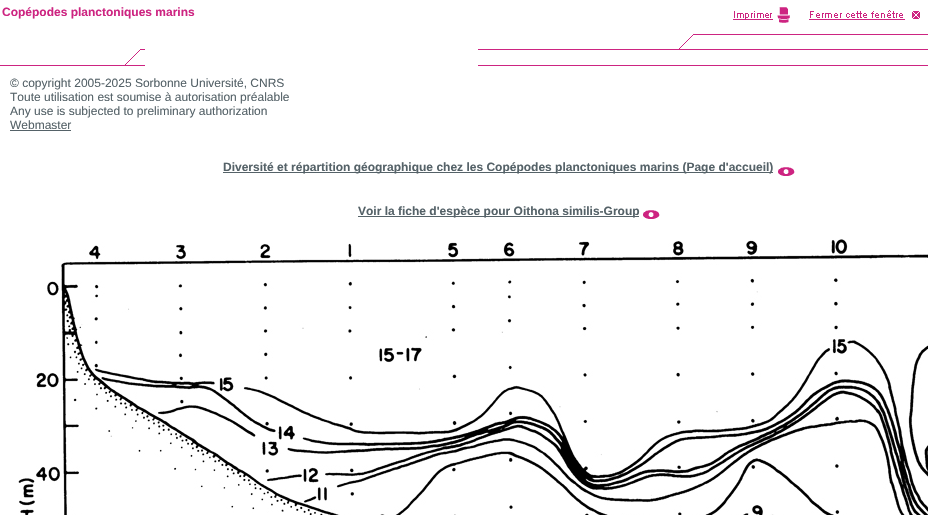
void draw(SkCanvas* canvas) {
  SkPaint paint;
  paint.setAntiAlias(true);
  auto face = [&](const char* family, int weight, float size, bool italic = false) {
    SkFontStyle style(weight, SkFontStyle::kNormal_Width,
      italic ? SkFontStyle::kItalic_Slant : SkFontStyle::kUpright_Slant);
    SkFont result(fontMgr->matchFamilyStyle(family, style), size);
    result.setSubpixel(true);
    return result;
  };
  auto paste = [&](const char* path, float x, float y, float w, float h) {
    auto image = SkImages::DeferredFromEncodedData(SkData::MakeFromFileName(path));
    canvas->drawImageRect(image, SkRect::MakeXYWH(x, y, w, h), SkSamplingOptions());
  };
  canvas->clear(0xffffffff);
  paste("img/1.png", 0, 49, 145, 17);
  paste("img/2.png", 478, 7, 450, 59);
  paint.setColor(0xff556268);
  canvas->drawRect(SkRect::MakeXYWH(10, 130, 61, 1), paint);
  canvas->drawRect(SkRect::MakeXYWH(223, 172, 550, 1), paint);
  paste("img/3.png", 778, 167, 17, 9);
  canvas->drawRect(SkRect::MakeXYWH(358, 216, 281, 1), paint);
  paste("img/3.png", 643, 210, 17, 9);
  paste("img/4.png", 18, 239, 910, 276);
  auto f0 = face("Liberation Sans", 700, 12);
  paint.setColor(0xffcd2481);
  canvas->drawString("Copépodes planctoniques marins", 2, 16, f0, paint);
  auto f1 = face("Liberation Sans", 400, 12);
  paint.setColor(0xff556268);
  {
    const struct { const char* s; float x, y; } items[] = {
      {"© copyright 2005-2025 Sorbonne Université, CNRS", 10, 87},
      {"Toute utilisation est soumise à autorisation préalable", 10, 101},
      {"Any use is subjected to preliminary authorization", 10, 115},
      {"Webmaster", 10, 129},
    };
    for (auto [s, x, y] : items) {
      canvas->drawString(s, x, y, f1, paint);
    }
  }
  canvas->drawString("Diversité et répartition géographique chez les Copépodes planctoniques marins (Page d'accueil)", 223, 171, f0, paint);
  canvas->drawString("Voir la fiche d'espèce pour Oithona similis-Group", 358, 215, f0, paint);
}
